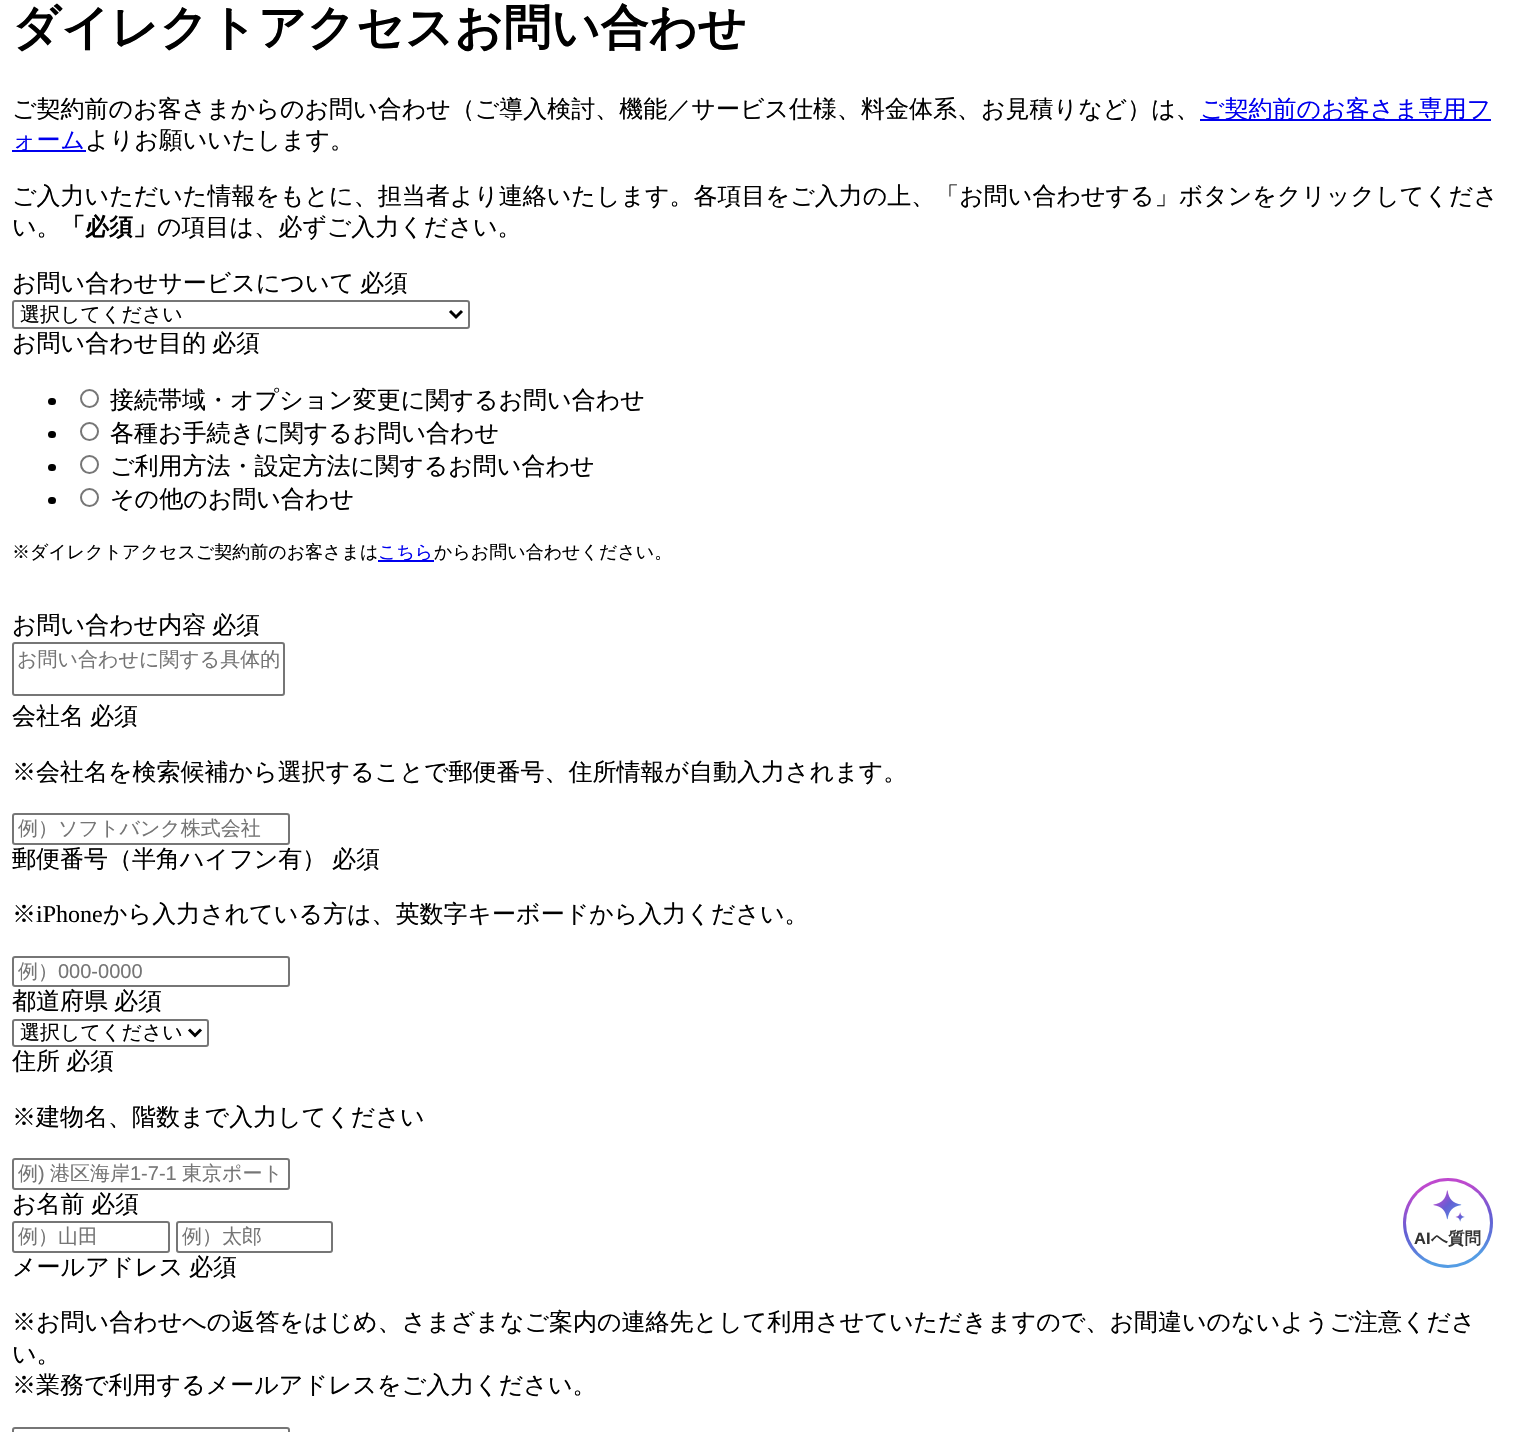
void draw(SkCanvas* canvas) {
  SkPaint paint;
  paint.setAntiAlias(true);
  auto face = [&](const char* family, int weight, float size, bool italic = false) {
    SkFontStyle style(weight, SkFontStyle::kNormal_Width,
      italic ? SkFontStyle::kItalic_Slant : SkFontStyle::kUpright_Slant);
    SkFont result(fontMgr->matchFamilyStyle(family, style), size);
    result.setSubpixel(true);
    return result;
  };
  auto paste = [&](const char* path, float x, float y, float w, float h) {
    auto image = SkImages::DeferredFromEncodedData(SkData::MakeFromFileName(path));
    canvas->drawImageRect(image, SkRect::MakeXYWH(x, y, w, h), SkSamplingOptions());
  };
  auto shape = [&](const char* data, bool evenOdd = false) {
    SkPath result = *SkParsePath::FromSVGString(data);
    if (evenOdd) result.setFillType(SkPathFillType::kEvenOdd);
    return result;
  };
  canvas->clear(0xffffffff);
  paint.setColor(0xff0000ee);
  canvas->drawRect(SkRect::MakeXYWH(1200, 119, 291, 2), paint);
  canvas->drawRect(SkRect::MakeXYWH(12, 150, 74, 2), paint);
  paint.setStroke(true);
  paint.setStrokeWidth(2);
  paint.setColor(0xff767676);
  canvas->drawRoundRect(SkRect::MakeXYWH(13, 301, 456, 27), 2, 2, paint);
  paint.setStrokeWidth(3);
  paint.setColor(0xff000000);
  canvas->drawPath(shape("M450 311L456 317L462 311"), paint);
  paint.setStroke(false);
  canvas->drawRoundRect(SkRect::MakeXYWH(48, 398, 8, 7), 3.5f, 3.5f, paint);
  paint.setStroke(true);
  paint.setStrokeWidth(2);
  paint.setColor(0xff767676);
  canvas->drawCircle(89.5f, 398.5f, 8.5f, paint);
  paint.setStroke(false);
  paint.setColor(0xff000000);
  canvas->drawRoundRect(SkRect::MakeXYWH(48, 431, 8, 7), 3.5f, 3.5f, paint);
  paint.setStroke(true);
  paint.setColor(0xff767676);
  canvas->drawCircle(89.5f, 431.5f, 8.5f, paint);
  paint.setStroke(false);
  paint.setColor(0xff000000);
  canvas->drawRoundRect(SkRect::MakeXYWH(48, 464, 8, 7), 3.5f, 3.5f, paint);
  paint.setStroke(true);
  paint.setColor(0xff767676);
  canvas->drawCircle(89.5f, 464.5f, 8.5f, paint);
  paint.setStroke(false);
  paint.setColor(0xff000000);
  canvas->drawRoundRect(SkRect::MakeXYWH(48, 497, 8, 7), 3.5f, 3.5f, paint);
  paint.setStroke(true);
  paint.setColor(0xff767676);
  canvas->drawCircle(89.5f, 497.5f, 8.5f, paint);
  paint.setStroke(false);
  paint.setColor(0xff0000ee);
  canvas->drawRect(SkRect::MakeXYWH(378, 560, 56, 2), paint);
  paint.setStroke(true);
  paint.setColor(0xff767676);
  canvas->drawRoundRect(SkRect::MakeXYWH(13, 643, 271, 52), 2, 2, paint);
  canvas->drawRoundRect(SkRect::MakeXYWH(13, 814, 276, 30), 2, 2, paint);
  canvas->drawRoundRect(SkRect::MakeXYWH(13, 957, 276, 29), 2, 2, paint);
  canvas->drawRoundRect(SkRect::MakeXYWH(13, 1020, 195, 26), 2, 2, paint);
  paint.setStrokeWidth(3);
  paint.setColor(0xff000000);
  canvas->drawPath(shape("M189 1029.5L195 1035.5L201 1029.5"), paint);
  paint.setStrokeWidth(2);
  paint.setColor(0xff767676);
  canvas->drawRoundRect(SkRect::MakeXYWH(13, 1159, 276, 30), 2, 2, paint);
  canvas->drawRoundRect(SkRect::MakeXYWH(13, 1222, 156, 30), 2, 2, paint);
  canvas->drawRoundRect(SkRect::MakeXYWH(177, 1222, 155, 30), 2, 2, paint);
  canvas->drawRoundRect(SkRect::MakeXYWH(13, 1428, 276, 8), 2, 2, paint);
  paint.setStroke(false);
  {
    const SkColor colors[] = {0xffbe49ce, 0xff655ed3, 0xff5f73d9, 0xff549ce4};
    const float stops[] = {0.16f, 0.51f, 0.68f, 0.85f};
    const SkPoint ends[] = {{1438, 1171}, {1457, 1274}};
    paint.setShader(SkGradientShader::MakeLinear(ends, colors, stops, 4, SkTileMode::kClamp));
    paint.setAlpha(255);
  }
  canvas->drawCircle(1448, 1223, 45, paint);
  paint.setShader(nullptr);
  paint.setColor(0xffffffff);
  canvas->drawCircle(1448, 1223, 42, paint);
  paste("img/1.png", 1433, 1190, 32, 32);
  auto f0 = face("WenQuanYi Zen Hei", 700, 48);
  paint.setColor(0xff000000);
  canvas->drawString("ダイレクトアクセスお問い合わせ", 12, 44, f0, paint);
  auto f1 = face("WenQuanYi Zen Hei", 500, 24);
  canvas->drawString("ご契約前のお客さまからのお問い合わせ（ご導入検討、機能／サービス仕様、料金体系、お見積りなど）は、", 12, 117, f1, paint);
  paint.setColor(0xff0000ee);
  canvas->drawString("ご契約前のお客さま専用フ", 1200, 117, f1, paint);
  canvas->drawString("ォーム", 12, 148, f1, paint);
  paint.setColor(0xff000000);
  {
    const struct { const char* s; float x, y; } items[] = {
      {"よりお願いいたします。", 85, 148},
      {"ご入力いただいた情報をもとに、担当者より連絡いたします。各項目をご入力の上、「お問い合わせする」ボタンをクリックしてくださ", 12, 204},
      {"い。", 12, 235},
    };
    for (auto [s, x, y] : items) {
      canvas->drawString(s, x, y, f1, paint);
    }
  }
  auto f2 = face("WenQuanYi Zen Hei", 700, 24);
  canvas->drawString("「必須」", 61, 235, f2, paint);
  {
    const struct { const char* s; float x, y; } items[] = {
      {"の項目は、必ずご入力ください。", 157, 235},
      {"お問い合わせサービスについて", 12, 291},
      {"必須", 360, 291},
    };
    for (auto [s, x, y] : items) {
      canvas->drawString(s, x, y, f1, paint);
    }
  }
  auto f3 = face("WenQuanYi Zen Hei", 500, 20);
  canvas->drawString("選択してください", 20, 321, f3, paint);
  {
    const struct { const char* s; float x, y; } items[] = {
      {"お問い合わせ目的", 12, 351},
      {"必須", 212, 351},
      {"接続帯域・オプション変更に関するお問い合わせ", 110, 408},
      {"各種お手続きに関するお問い合わせ", 110, 441},
      {"ご利用方法・設定方法に関するお問い合わせ", 110, 474},
      {"その他のお問い合わせ", 110, 507},
    };
    for (auto [s, x, y] : items) {
      canvas->drawString(s, x, y, f1, paint);
    }
  }
  auto f4 = face("WenQuanYi Zen Hei", 500, 18);
  canvas->drawString("※ダイレクトアクセスご契約前のお客さまは", 12, 558, f4, paint);
  paint.setColor(0xff0000ee);
  canvas->drawString("こちら", 378, 558, f4, paint);
  paint.setColor(0xff000000);
  canvas->drawString("からお問い合わせください。", 434, 558, f4, paint);
  canvas->drawString("お問い合わせ内容", 12, 633, f1, paint);
  canvas->drawString("必須", 212, 633, f1, paint);
  paint.setColor(0xff757575);
  canvas->drawString("お問い合わせに関する具体的", 17, 666, f3, paint);
  paint.setColor(0xff000000);
  {
    const struct { const char* s; float x, y; } items[] = {
      {"会社名", 12, 724},
      {"必須", 90, 724},
      {"※会社名を検索候補から選択することで郵便番号、住所情報が自動入力されます。", 12, 780},
    };
    for (auto [s, x, y] : items) {
      canvas->drawString(s, x, y, f1, paint);
    }
  }
  paint.setColor(0xff757575);
  canvas->drawString("例）ソフトバンク株式会社", 18, 835, f3, paint);
  paint.setColor(0xff000000);
  {
    const struct { const char* s; float x, y; } items[] = {
      {"郵便番号（半角ハイフン有）", 12, 867},
      {"必須", 332, 867},
      {"※", 12, 922},
    };
    for (auto [s, x, y] : items) {
      canvas->drawString(s, x, y, f1, paint);
    }
  }
  auto f5 = face("Liberation Serif", 400, 24);
  canvas->drawString("iPhone", 36, 922, f5, paint);
  canvas->drawString("から入力されている方は、英数字キーボードから入力ください。", 103, 922, f1, paint);
  paint.setColor(0xff757575);
  canvas->drawString("例）", 18, 978, f3, paint);
  auto f6 = face("Liberation Sans", 400, 20);
  canvas->drawString("000-0000", 58, 978, f6, paint);
  paint.setColor(0xff000000);
  canvas->drawString("都道府県", 12, 1009, f1, paint);
  canvas->drawString("必須", 114, 1009, f1, paint);
  canvas->drawString("選択してください", 20, 1039, f3, paint);
  {
    const struct { const char* s; float x, y; } items[] = {
      {"住所", 12, 1069},
      {"必須", 66, 1069},
      {"※建物名、階数まで入力してください", 12, 1125},
    };
    for (auto [s, x, y] : items) {
      canvas->drawString(s, x, y, f1, paint);
    }
  }
  paint.setColor(0xff757575);
  canvas->drawString("例", 18, 1180, f3, paint);
  canvas->drawString(")", 38, 1180, f6, paint);
  canvas->drawString("港区海岸", 50, 1180, f3, paint);
  canvas->drawString("1-7-1", 130, 1180, f6, paint);
  canvas->drawString("東京ポート", 182, 1180, f3, paint);
  paint.setColor(0xff000000);
  canvas->drawString("お名前", 12, 1212, f1, paint);
  canvas->drawString("必須", 91, 1212, f1, paint);
  paint.setColor(0xff757575);
  canvas->drawString("例）山田", 18, 1243, f3, paint);
  canvas->drawString("例）太郎", 182, 1243, f3, paint);
  paint.setColor(0xff000000);
  {
    const struct { const char* s; float x, y; } items[] = {
      {"メールアドレス", 12, 1275},
      {"必須", 189, 1275},
      {"※お問い合わせへの返答をはじめ、さまざまなご案内の連絡先として利用させていただきますので、お間違いのないようご注意くださ", 12, 1330},
      {"い。", 12, 1362},
      {"※業務で利用するメールアドレスをご入力ください。", 12, 1393},
    };
    for (auto [s, x, y] : items) {
      canvas->drawString(s, x, y, f1, paint);
    }
  }
  auto f7 = face("Liberation Sans", 700, 16.5f);
  paint.setColor(0xff333333);
  canvas->drawString("AI", 1414, 1244, f7, paint);
  auto f8 = face("WenQuanYi Zen Hei", 700, 16.5f);
  canvas->drawString("へ質問", 1431, 1244, f8, paint);
}
